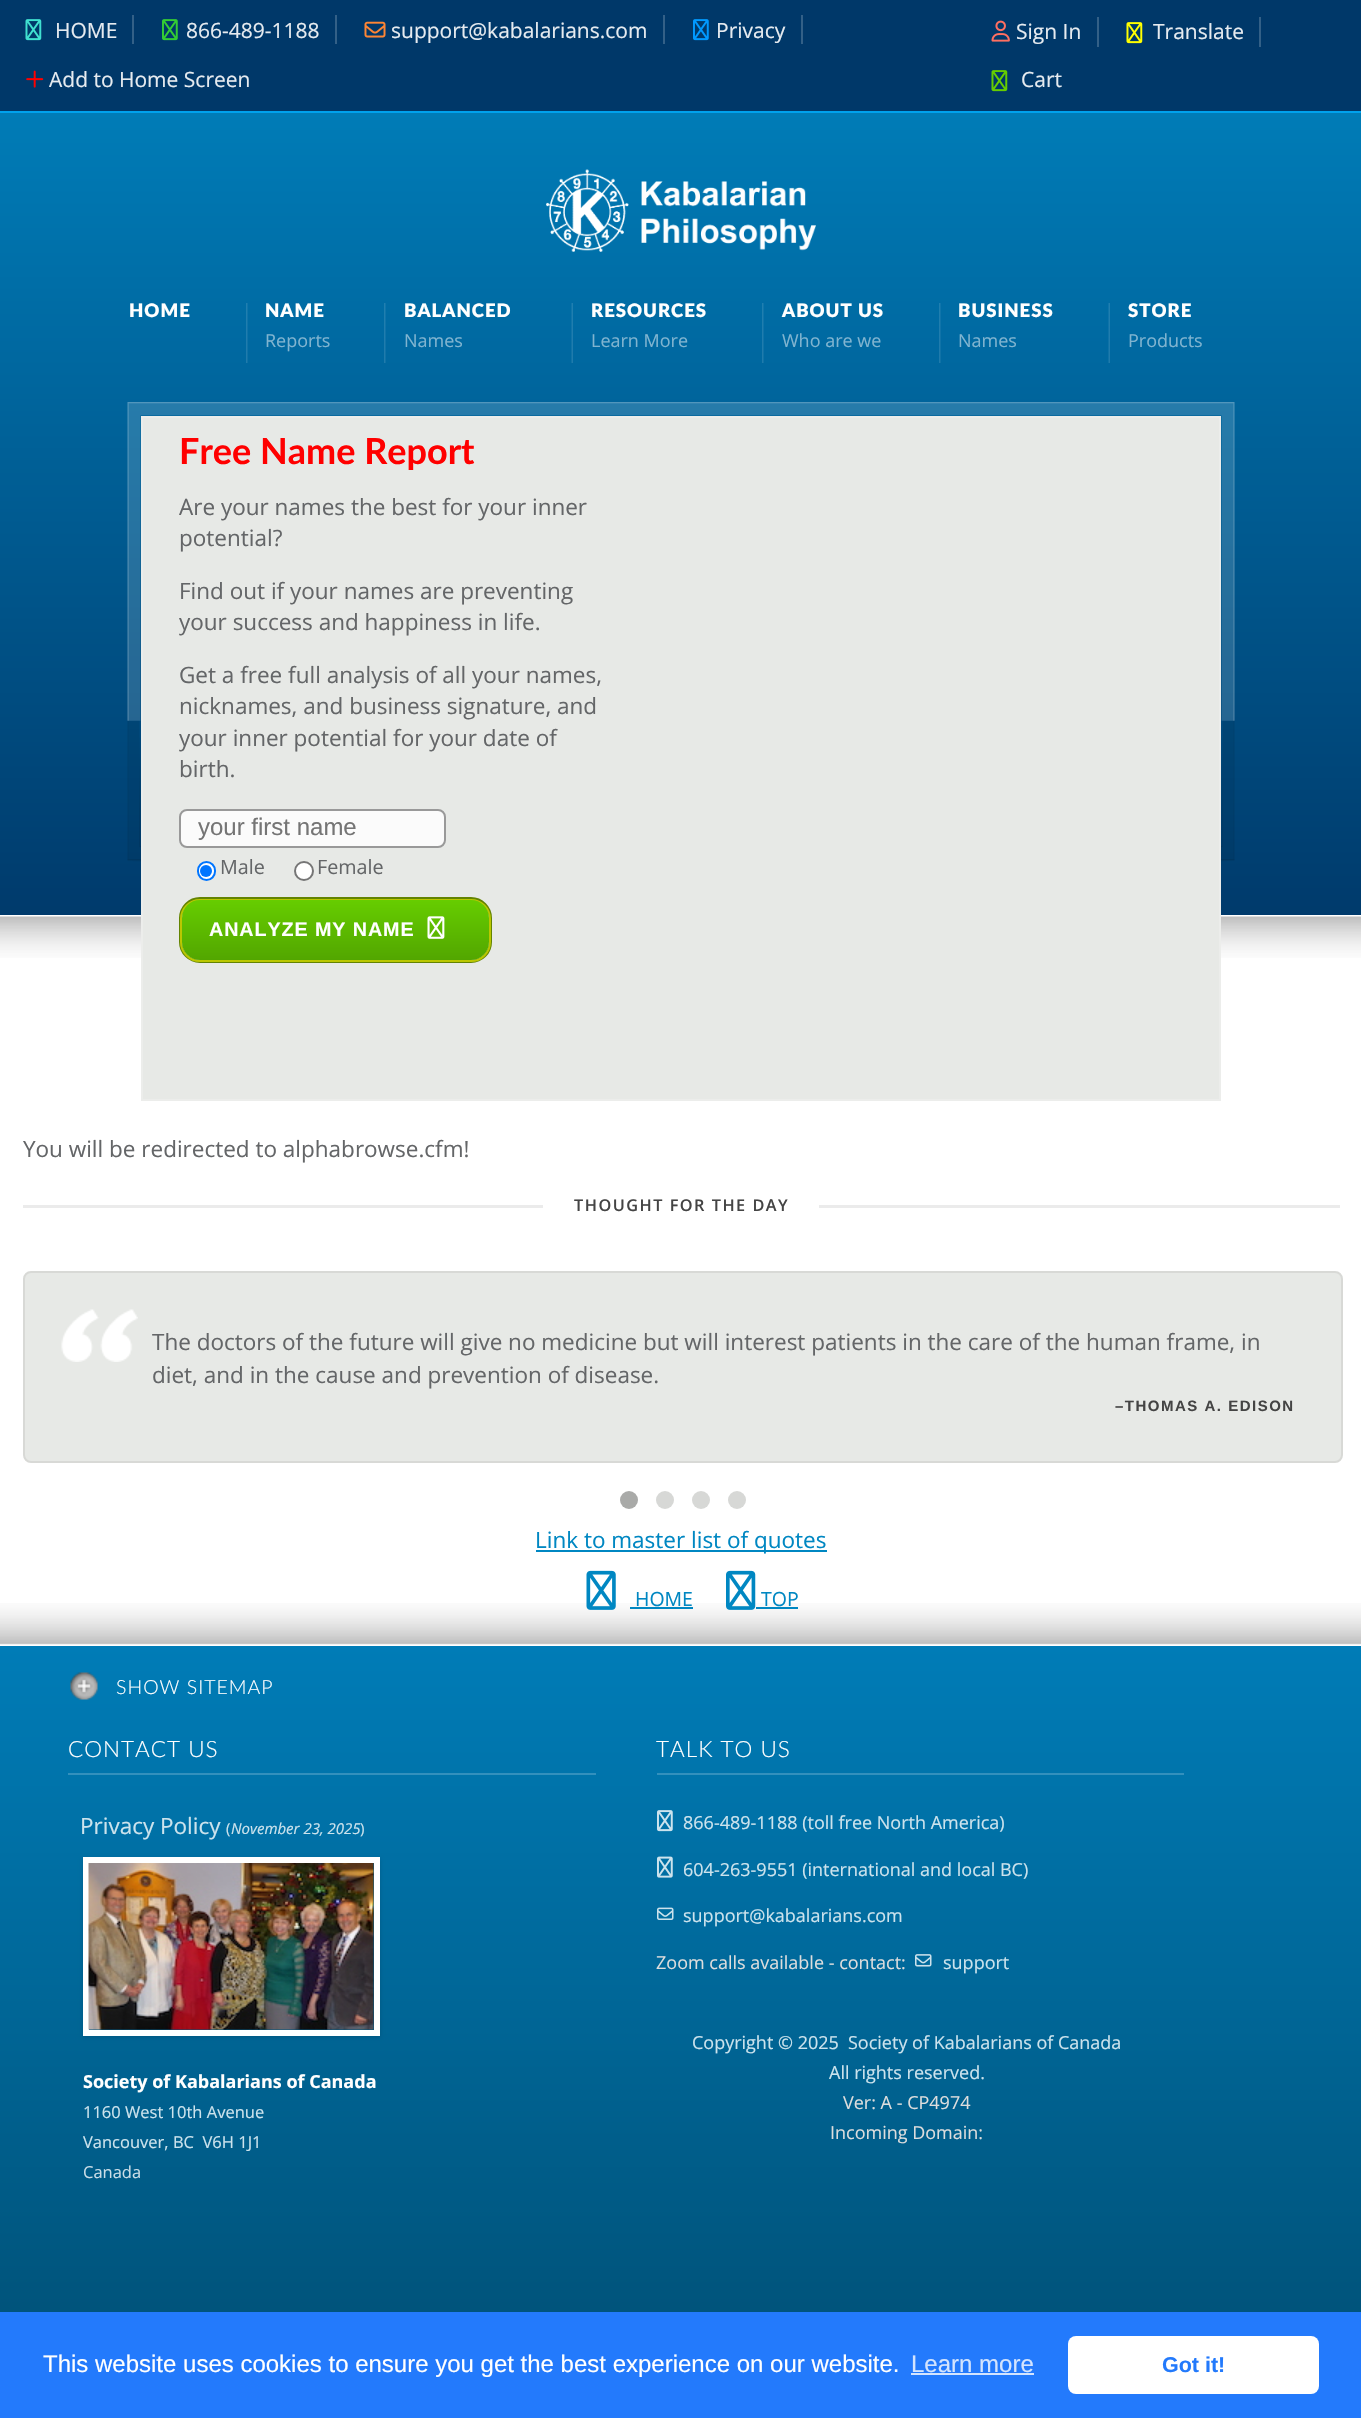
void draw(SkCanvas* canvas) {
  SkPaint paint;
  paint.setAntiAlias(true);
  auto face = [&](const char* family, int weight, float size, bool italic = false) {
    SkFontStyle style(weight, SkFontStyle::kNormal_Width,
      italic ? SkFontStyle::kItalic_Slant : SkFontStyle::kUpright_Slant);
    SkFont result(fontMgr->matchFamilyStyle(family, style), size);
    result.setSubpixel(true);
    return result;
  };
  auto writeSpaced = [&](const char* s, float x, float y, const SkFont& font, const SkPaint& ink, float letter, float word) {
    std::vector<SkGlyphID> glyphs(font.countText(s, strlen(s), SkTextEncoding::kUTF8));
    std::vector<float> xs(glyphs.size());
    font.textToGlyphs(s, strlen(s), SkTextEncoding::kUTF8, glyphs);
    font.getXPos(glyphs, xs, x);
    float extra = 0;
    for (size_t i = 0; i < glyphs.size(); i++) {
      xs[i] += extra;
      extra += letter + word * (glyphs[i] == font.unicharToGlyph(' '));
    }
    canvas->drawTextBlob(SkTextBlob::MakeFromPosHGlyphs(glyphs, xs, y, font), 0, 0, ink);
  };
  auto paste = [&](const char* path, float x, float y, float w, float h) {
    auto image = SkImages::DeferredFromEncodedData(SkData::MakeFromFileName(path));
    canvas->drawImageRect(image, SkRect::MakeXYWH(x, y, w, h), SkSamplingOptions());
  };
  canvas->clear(0xff003869);
  paint.setColor(0xff336087);
  canvas->drawRect(SkRect::MakeXYWH(132, 15, 2, 29), paint);
  paste("img/1.png", 25, 19, 17, 22);
  canvas->drawRect(SkRect::MakeXYWH(335, 15, 2, 29), paint);
  paste("img/2.png", 162, 19, 16, 22);
  canvas->drawRect(SkRect::MakeXYWH(663, 15, 2, 29), paint);
  paste("img/3.png", 364, 21, 22, 17);
  canvas->drawRect(SkRect::MakeXYWH(801, 15, 2, 29), paint);
  paste("img/4.png", 693, 19, 16, 22);
  paste("img/5.png", 26, 70, 18, 18);
  canvas->drawRect(SkRect::MakeXYWH(1097, 17, 2, 30), paint);
  paste("img/6.png", 991, 20, 19, 22);
  canvas->drawRect(SkRect::MakeXYWH(1259, 17, 2, 30), paint);
  paste("img/7.png", 1126, 22, 17, 22);
  paste("img/8.png", 991, 70, 17, 22);
  {
    const SkColor colors[] = {0xff007cb7, 0xff003869};
    const float stops[] = {0, 0.8f};
    const SkPoint ends[] = {{681, 112}, {681, 1151}};
    paint.setShader(SkGradientShader::MakeLinear(ends, colors, stops, 2, SkTileMode::kClamp));
    paint.setAlpha(255);
  }
  canvas->drawRect(SkRect::MakeXYWH(0, 113, 1361, 802), paint);
  paint.setShader(nullptr);
  paint.setColor(0xff00a2ed);
  canvas->drawRect(SkRect::MakeXYWH(0, 111, 1361, 2), paint);
  paste("img/9.png", 546, 169, 270, 83);
  paste("img/10.png", 246, 303, 2, 60);
  paste("img/10.png", 384, 303, 2, 60);
  paste("img/11.png", 571, 303, 2, 60);
  paste("img/10.png", 762, 303, 2, 60);
  paste("img/10.png", 939, 303, 2, 60);
  paste("img/11.png", 1108, 303, 2, 60);
  paste("img/12.png", 127, 402, 1108, 460);
  paint.setColor(0xffffffff);
  canvas->drawRect(SkRect::MakeXYWH(0, 915, 1361, 731), paint);
  paste("img/14.png", 0, 916, 1361, 42);
  paint.setColor(0xffe7e9e6);
  canvas->drawRect(SkRect::MakeXYWH(142, 417, 1078, 683), paint);
  paint.setStroke(true);
  paint.setStrokeWidth(2);
  paint.setColor(0xffecedeb);
  canvas->drawRect(SkRect::MakeXYWH(142, 417, 1078, 683), paint);
  paint.setStroke(false);
  paint.setColor(0xfffbfbfb);
  canvas->drawRoundRect(SkRect::MakeXYWH(180, 810, 265, 37), 7, 7, paint);
  paint.setStroke(true);
  paint.setColor(0xff999999);
  canvas->drawRoundRect(SkRect::MakeXYWH(180, 810, 265, 37), 7, 7, paint);
  paint.setStroke(false);
  paint.setColor(0xffffffff);
  canvas->drawRoundRect(SkRect::MakeXYWH(198, 862, 17, 18), 8.5f, 8.5f, paint);
  paint.setStroke(true);
  paint.setColor(0xff0075ff);
  canvas->drawRoundRect(SkRect::MakeXYWH(198, 862, 17, 18), 8.5f, 8.5f, paint);
  paint.setStroke(false);
  canvas->drawCircle(206, 871, 6, paint);
  paint.setColor(0xffffffff);
  canvas->drawCircle(304, 871, 9, paint);
  paint.setStroke(true);
  paint.setColor(0xff767676);
  canvas->drawCircle(304, 871, 9, paint);
  paint.setStrokeWidth(3);
  paint.setColor(0xff638401);
  canvas->drawRoundRect(SkRect::MakeXYWH(180.5f, 898.5f, 310, 63), 19.5f, 19.5f, paint);
  paint.setStrokeWidth(2);
  paint.setColor(0xffbbc701);
  canvas->drawRoundRect(SkRect::MakeXYWH(181, 900, 309, 61), 19, 19, paint);
  paint.setStroke(false);
  {
    const SkColor colors[] = {0xff66cd00, 0xff52a600};
    const float stops[] = {0, 1};
    const SkPoint ends[] = {{335, 900}, {335, 960}};
    paint.setShader(SkGradientShader::MakeLinear(ends, colors, stops, 2, SkTileMode::kClamp));
    paint.setAlpha(255);
  }
  canvas->drawRoundRect(SkRect::MakeXYWH(182, 900, 307, 60), 18, 18, paint);
  paste("img/13.png", 427, 916, 18, 23);
  paint.setShader(nullptr);
  paint.setColor(0xffebebeb);
  canvas->drawRect(SkRect::MakeXYWH(23, 1205, 1317, 3), paint);
  paint.setColor(0xffffffff);
  canvas->drawRect(SkRect::MakeXYWH(543, 1205, 276, 3), paint);
  paint.setColor(0xffe7e9e6);
  canvas->drawRoundRect(SkRect::MakeXYWH(24, 1272, 1318, 190), 7, 7, paint);
  paint.setStroke(true);
  paint.setColor(0xffd8d9d6);
  canvas->drawRoundRect(SkRect::MakeXYWH(24, 1272, 1318, 190), 7, 7, paint);
  paste("img/15.png", 61, 1309, 77, 53);
  paint.setStroke(false);
  paint.setColor(0xffa9aaa8);
  canvas->drawCircle(629, 1500, 9, paint);
  paint.setColor(0xffd7d8d6);
  canvas->drawCircle(665, 1500, 9, paint);
  canvas->drawCircle(701, 1500, 9, paint);
  canvas->drawCircle(737, 1500, 9, paint);
  paint.setColor(0xff0087c2);
  canvas->drawRect(SkRect::MakeXYWH(536, 1550, 291, 2), paint);
  paste("img/18.png", 0, 1603, 1361, 42);
  paste("img/16.png", 586, 1570, 30, 40);
  canvas->drawRect(SkRect::MakeXYWH(630, 1607, 63, 2), paint);
  paste("img/17.png", 726, 1570, 30, 40);
  canvas->drawRect(SkRect::MakeXYWH(756, 1607, 42, 2), paint);
  {
    const SkColor colors[] = {0xff007cb7, 0xff00547c};
    const float stops[] = {0, 0.64f};
    const SkPoint ends[] = {{681, 1646}, {681, 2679}};
    paint.setShader(SkGradientShader::MakeLinear(ends, colors, stops, 2, SkTileMode::kClamp));
    paint.setAlpha(255);
  }
  canvas->drawRect(SkRect::MakeXYWH(0, 1646, 1361, 666), paint);
  paste("img/19.png", 70, 1672, 28, 28);
  paint.setShader(nullptr);
  paint.setColor(0xff3390bd);
  canvas->drawRect(SkRect::MakeXYWH(68, 1773, 528, 2), paint);
  paint.setColor(0x26000000);
  paint.setMaskFilter(SkMaskFilter::MakeBlur(kNormal_SkBlurStyle, 2));
  canvas->drawRect(SkRect::MakeXYWH(83, 1859, 297, 178), paint);
  paint.setMaskFilter(nullptr);
  paint.setStroke(true);
  paint.setStrokeWidth(6);
  paint.setColor(0xffffffff);
  canvas->drawRect(SkRect::MakeXYWH(86, 1860, 291, 173), paint);
  paste("img/20.png", 88, 1863, 286, 167);
  paint.setStroke(false);
  paint.setColor(0xff3390bd);
  canvas->drawRect(SkRect::MakeXYWH(657, 1773, 527, 2), paint);
  paste("img/21.png", 657, 1810, 16, 22);
  paste("img/22.png", 657, 1856, 16, 22);
  paste("img/23.png", 657, 1907, 17, 13);
  paste("img/24.png", 915, 1954, 17, 13);
  paint.setColor(0xff237afc);
  canvas->drawRect(SkRect::MakeXYWH(0, 2312, 1361, 106), paint);
  paint.setColor(0xffd3e4fe);
  canvas->drawRect(SkRect::MakeXYWH(911, 2373, 123, 2), paint);
  paint.setColor(0xffffffff);
  canvas->drawRoundRect(SkRect::MakeXYWH(1068, 2336, 251, 58), 8, 8, paint);
  auto f0 = face("Open Sans", 400, 21);
  paint.setColor(0xffe6ebf0);
  {
    const struct { const char* s; float x, y; } items[] = {
      {"HOME", 55, 38},
      {"866-489-1188", 186, 38},
      {"support@kabalarians.com", 391, 38},
      {"Privacy", 716, 38},
      {"Add to Home Screen", 49, 87},
      {"Sign In", 1016, 39},
      {"Translate", 1153, 39},
      {"Cart", 1021, 87},
    };
    for (auto [s, x, y] : items) {
      canvas->drawString(s, x, y, f0, paint);
    }
  }
  auto f1 = face("Lato", 800, 18.5f);
  paint.setColor(0xffffffff);
  writeSpaced("HOME", 129, 317, f1, paint, 1, 0);
  writeSpaced("NAME", 265, 317, f1, paint, 1, 0);
  auto f2 = face("Open Sans", 400, 18);
  paint.setColor(0xff80b4d0);
  canvas->drawString("Reports", 265, 347, f2, paint);
  paint.setColor(0xffffffff);
  writeSpaced("BALANCED", 404, 317, f1, paint, 1, 0);
  paint.setColor(0xff80b4d0);
  canvas->drawString("Names", 404, 347, f2, paint);
  paint.setColor(0xffffffff);
  writeSpaced("RESOURCES", 591, 317, f1, paint, 1, 0);
  paint.setColor(0xff80b4d0);
  canvas->drawString("Learn More", 591, 347, f2, paint);
  paint.setColor(0xffffffff);
  writeSpaced("ABOUT US", 782, 317, f1, paint, 1, 0);
  paint.setColor(0xff80b4d0);
  canvas->drawString("Who are we", 782, 347, f2, paint);
  paint.setColor(0xffffffff);
  writeSpaced("BUSINESS", 958, 317, f1, paint, 1, 0);
  paint.setColor(0xff80b4d0);
  canvas->drawString("Names", 958, 347, f2, paint);
  paint.setColor(0xffffffff);
  writeSpaced("STORE", 1128, 317, f1, paint, 1, 0);
  paint.setColor(0xff80b4d0);
  canvas->drawString("Products", 1128, 347, f2, paint);
  auto f3 = face("Lato", 700, 36);
  paint.setColor(0xffff0000);
  canvas->drawString("Free Name Report", 179, 464, f3, paint);
  auto f4 = face("Open Sans", 400, 22.5f);
  paint.setColor(0xff646668);
  {
    const struct { const char* s; float x, y; } items[] = {
      {"Are your names the best for your inner", 179, 515},
      {"potential?", 179, 546},
      {"Find out if your names are preventing", 179, 599},
      {"your success and happiness in life.", 179, 630},
      {"Get a free full analysis of all your names,", 179, 683},
      {"nicknames, and business signature, and", 179, 714},
      {"your inner potential for your date of", 179, 746},
      {"birth.", 179, 777},
    };
    for (auto [s, x, y] : items) {
      canvas->drawString(s, x, y, f4, paint);
    }
  }
  auto f5 = face("Liberation Sans", 400, 24);
  paint.setColor(0xff757575);
  canvas->drawString("your first name", 198, 835, f5, paint);
  auto f6 = face("Open Sans", 400, 19.75f);
  paint.setColor(0xff646668);
  canvas->drawString("Male", 220, 874, f6, paint);
  canvas->drawString("Female", 317, 874, f6, paint);
  auto f7 = face("Liberation Sans", 700, 19.75f);
  paint.setColor(0xffffffff);
  writeSpaced("ANALYZE MY NAME", 209, 936, f7, paint, 0.9f, 0);
  paint.setColor(0xff646668);
  canvas->drawString("You will be redirected to alphabrowse.cfm!", 23, 1157, f4, paint);
  auto f8 = face("Open Sans", 600, 16.25f);
  paint.setColor(0xff444444);
  writeSpaced("THOUGHT FOR THE DAY", 574, 1211, f8, paint, 1.5f, 0);
  paint.setColor(0xff646668);
  canvas->drawString("The doctors of the future will give no medicine but will interest patients in the care of the human frame, in", 152, 1350, f4, paint);
  canvas->drawString("diet, and in the cause and prevention of disease.", 152, 1383, f4, paint);
  auto f9 = face("Liberation Sans", 700, 15);
  paint.setColor(0xff444444);
  writeSpaced("–THOMAS A. EDISON", 1115, 1411, f9, paint, 1.5f, 0);
  paint.setColor(0xff0087c2);
  canvas->drawString("Link to master list of quotes", 535, 1548, f4, paint);
  auto f10 = face("Open Sans", 400, 19.5f);
  canvas->drawString("HOME", 635, 1606, f10, paint);
  canvas->drawString("TOP", 761, 1606, f10, paint);
  auto f11 = face("Lato", 300, 19.5f);
  paint.setColor(0xffffffff);
  writeSpaced("SHOW SITEMAP", 116, 1694, f11, paint, 1, 0);
  auto f12 = face("Lato", 300, 22.5f);
  writeSpaced("CONTACT US", 68, 1757, f12, paint, 1, 0);
  paint.setColor(0xffcce3ed);
  canvas->drawString("Privacy Policy", 80, 1834, f4, paint);
  auto f13 = face("Open Sans", 400, 15);
  canvas->drawString("(", 226, 1834, f13, paint);
  auto f14 = face("Open Sans", 400, 15, true);
  canvas->drawString("November 23, 2025", 231, 1834, f14, paint);
  canvas->drawString(")", 360, 1834, f13, paint);
  auto f15 = face("Open Sans", 700, 18);
  paint.setColor(0xffffffff);
  canvas->drawString("Society of Kabalarians of Canada", 83, 2088, f15, paint);
  auto f16 = face("Open Sans", 400, 16.5f);
  paint.setColor(0xffcce3ed);
  canvas->drawString("1160 West 10th Avenue", 83, 2118, f16, paint);
  canvas->drawString("Vancouver, BC  V6H 1J1", 83, 2148, f16, paint);
  paint.setColor(0xffccdee7);
  canvas->drawString("Canada", 83, 2178, f16, paint);
  paint.setColor(0xffffffff);
  writeSpaced("TALK TO US", 656, 1757, f12, paint, 1, 0);
  paint.setColor(0xffcce3ed);
  {
    const struct { const char* s; float x, y; } items[] = {
      {"866-489-1188 (toll free North America)", 683, 1829},
      {"604-263-9551 (international and local BC)", 683, 1876},
      {"support@kabalarians.com", 683, 1922},
    };
    for (auto [s, x, y] : items) {
      canvas->drawString(s, x, y, f2, paint);
    }
  }
  paint.setColor(0xffdddddd);
  canvas->drawString("Zoom calls available - contact:", 656, 1969, f2, paint);
  paint.setColor(0xffcce3ed);
  {
    const struct { const char* s; float x, y; } items[] = {
      {"support", 943, 1969},
      {"Copyright © 2025", 692, 2049},
      {"Society of Kabalarians of Canada", 848, 2049},
      {"All rights reserved.", 829, 2079},
    };
    for (auto [s, x, y] : items) {
      canvas->drawString(s, x, y, f2, paint);
    }
  }
  paint.setColor(0xffdddddd);
  canvas->drawString("Ver: A - CP4974", 843, 2109, f2, paint);
  canvas->drawString("Incoming Domain:", 830, 2139, f2, paint);
  paint.setColor(0xffffffff);
  canvas->drawString("This website uses cookies to ensure you get the best experience on our website.", 43, 2372, f5, paint);
  paint.setColor(0xffd3e4fe);
  canvas->drawString("Learn more", 911, 2372, f5, paint);
  auto f17 = face("Liberation Sans", 700, 21.5f);
  paint.setColor(0xff237afc);
  canvas->drawString("Got it!", 1162, 2372, f17, paint);
}
